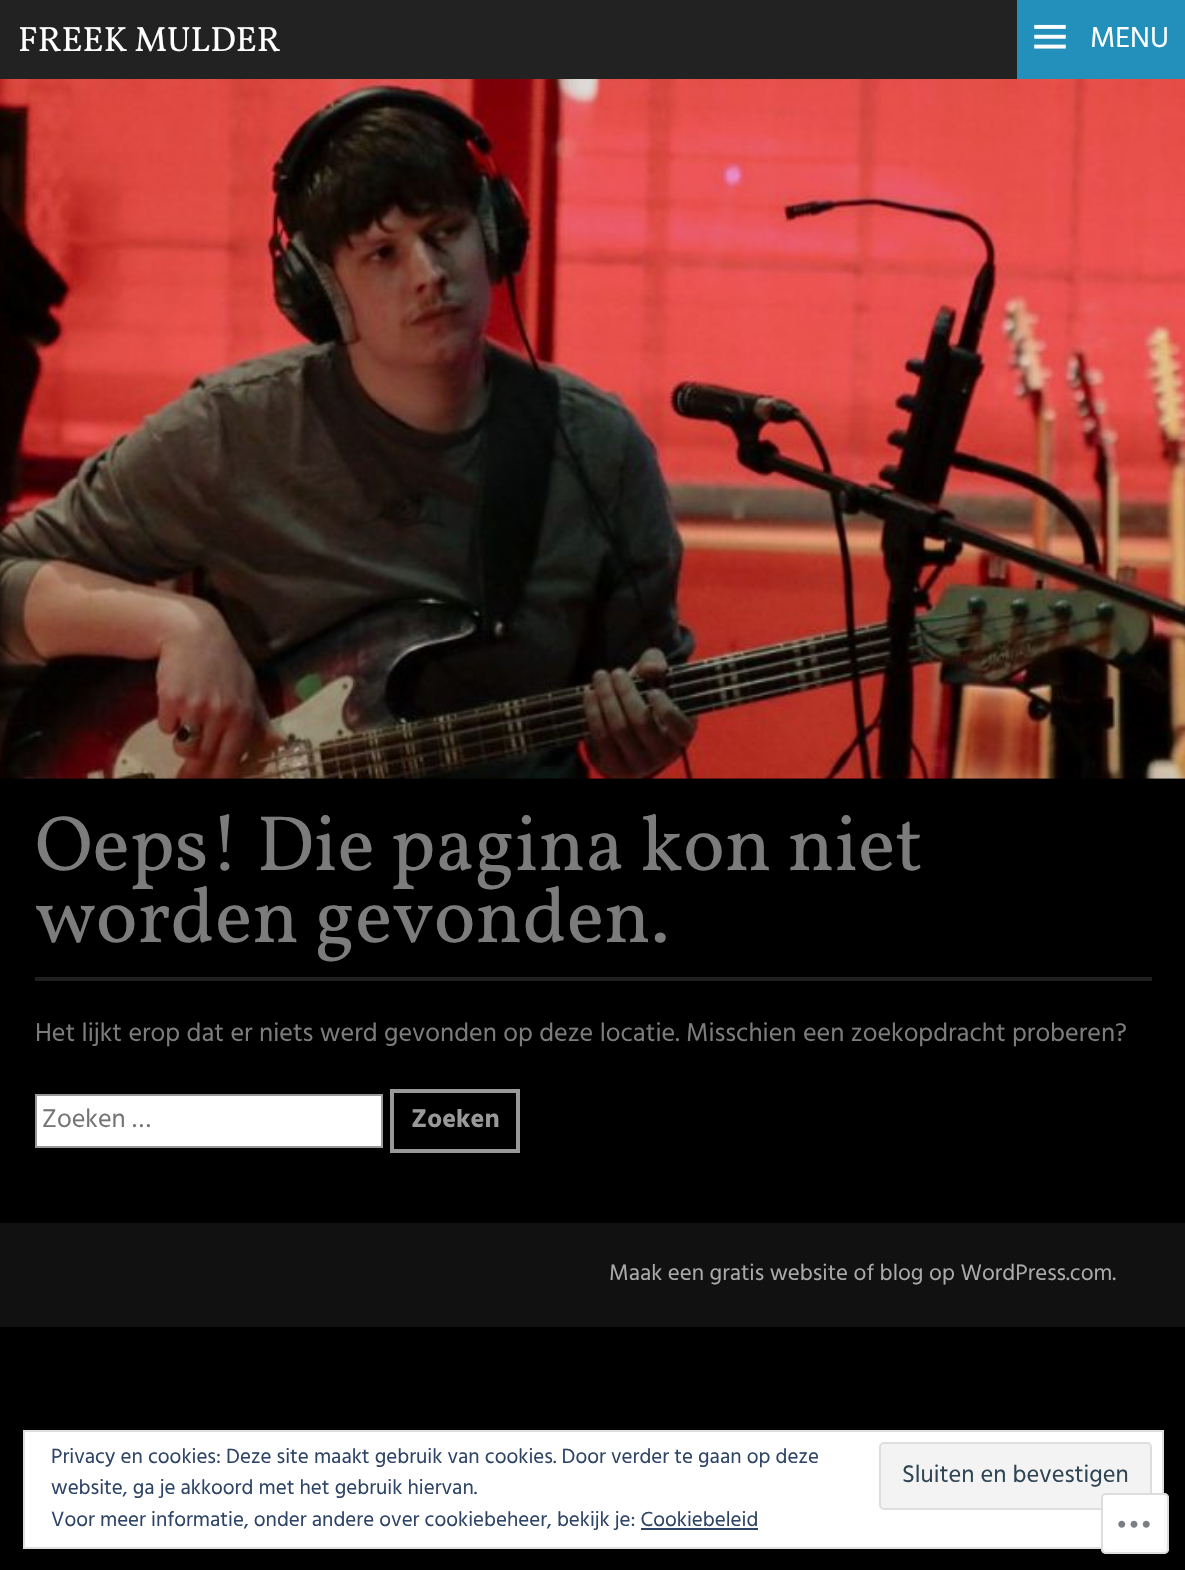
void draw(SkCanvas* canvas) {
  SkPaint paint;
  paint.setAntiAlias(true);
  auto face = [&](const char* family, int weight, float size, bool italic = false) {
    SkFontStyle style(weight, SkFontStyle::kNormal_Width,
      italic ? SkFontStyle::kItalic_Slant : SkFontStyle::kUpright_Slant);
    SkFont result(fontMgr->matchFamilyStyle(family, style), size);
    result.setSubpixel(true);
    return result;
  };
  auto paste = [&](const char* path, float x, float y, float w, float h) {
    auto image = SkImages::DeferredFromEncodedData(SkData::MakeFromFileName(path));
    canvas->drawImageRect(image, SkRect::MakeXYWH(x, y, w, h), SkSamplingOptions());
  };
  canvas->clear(0xff000000);
  paint.setColor(0xff222222);
  canvas->drawRect(SkRect::MakeXYWH(0, 0, 1017, 79), paint);
  paint.setColor(0xff2390bb);
  canvas->drawRect(SkRect::MakeXYWH(1017, 0, 168, 79), paint);
  paste("img/1.png", 1034, 24, 32, 25);
  paste("img/2.png", 0, 79, 1185, 700);
  paint.setColor(0xff1f1f1f);
  canvas->drawRect(SkRect::MakeXYWH(35, 977, 1117, 4), paint);
  paint.setColor(0xffffffff);
  canvas->drawRect(SkRect::MakeXYWH(36, 1095, 346, 52), paint);
  paint.setStroke(true);
  paint.setStrokeWidth(2);
  paint.setColor(0xff999999);
  canvas->drawRect(SkRect::MakeXYWH(36, 1095, 346, 52), paint);
  paint.setStrokeWidth(4);
  canvas->drawRect(SkRect::MakeXYWH(392, 1091, 126, 60), paint);
  paint.setStroke(false);
  paint.setColor(0xff111111);
  canvas->drawRect(SkRect::MakeXYWH(0, 1223, 1185, 104), paint);
  paint.setColor(0xffffffff);
  canvas->drawRect(SkRect::MakeXYWH(24, 1431, 1139, 117), paint);
  paint.setStroke(true);
  paint.setStrokeWidth(2);
  paint.setColor(0xffdedede);
  canvas->drawRect(SkRect::MakeXYWH(24, 1431, 1139, 117), paint);
  paint.setStroke(false);
  paint.setColor(0xfff3f3f3);
  canvas->drawRoundRect(SkRect::MakeXYWH(880, 1443, 271, 66), 4, 4, paint);
  paint.setStroke(true);
  paint.setColor(0xffdedede);
  canvas->drawRoundRect(SkRect::MakeXYWH(880, 1443, 271, 66), 4, 4, paint);
  paint.setStroke(false);
  paint.setColor(0xff2e4467);
  canvas->drawRect(SkRect::MakeXYWH(641, 1528, 117, 2), paint);
  paint.setColor(0xfaffffff);
  canvas->drawRoundRect(SkRect::MakeXYWH(1101, 1493, 68, 61), 5, 5, paint);
  paint.setStroke(true);
  paint.setColor(0xfadcdcde);
  canvas->drawRoundRect(SkRect::MakeXYWH(1102, 1494, 66, 59), 4, 4, paint);
  paste("img/3.png", 1118, 1520, 32, 8);
  auto f0 = face("Vollkorn", 400, 35);
  paint.setStroke(false);
  paint.setColor(0xffffffff);
  canvas->drawString("FREEK MULDER", 18, 51, f0, paint);
  auto f1 = face("Hind", 400, 29.5f);
  canvas->drawString("MENU", 1090, 47, f1, paint);
  auto f2 = face("Vollkorn", 400, 78.6f);
  paint.setColor(0xff7c7c7c);
  canvas->drawString("Oeps! Die pagina kon niet", 35, 870, f2, paint);
  canvas->drawString("worden gevonden.", 35, 942, f2, paint);
  auto f3 = face("Hind", 400, 26.2f);
  canvas->drawString("Het lijkt erop dat er niets werd gevonden op deze locatie. Misschien een zoekopdracht", 35, 1041, f3, paint);
  canvas->drawString("proberen?", 1012, 1041, f3, paint);
  paint.setColor(0xff757575);
  canvas->drawString("Zoeken …", 42, 1127, f3, paint);
  auto f4 = face("Hind", 700, 26.2f);
  paint.setColor(0xff999999);
  canvas->drawString("Zoeken", 411, 1127, f4, paint);
  auto f5 = face("Hind", 400, 22.9f);
  paint.setColor(0xffaaaaaa);
  canvas->drawString("Maak een gratis website of blog op WordPress.com.", 609, 1280, f5, paint);
  auto f6 = face("Hind", 400, 21);
  paint.setColor(0xff2e4467);
  canvas->drawString("Privacy en cookies: Deze site maakt gebruik van cookies. Door verder te gaan op deze", 51, 1463, f6, paint);
  canvas->drawString("website, ga je akkoord met het gebruik hiervan.", 51, 1494, f6, paint);
  auto f7 = face("Hind", 400, 24.5f);
  paint.setColor(0xff2e4453);
  canvas->drawString("Sluiten en bevestigen", 902, 1482, f7, paint);
  paint.setColor(0xff2e4467);
  canvas->drawString("Voor meer informatie, onder andere over cookiebeheer, bekijk je: Cookiebeleid", 51, 1526, f6, paint);
}
